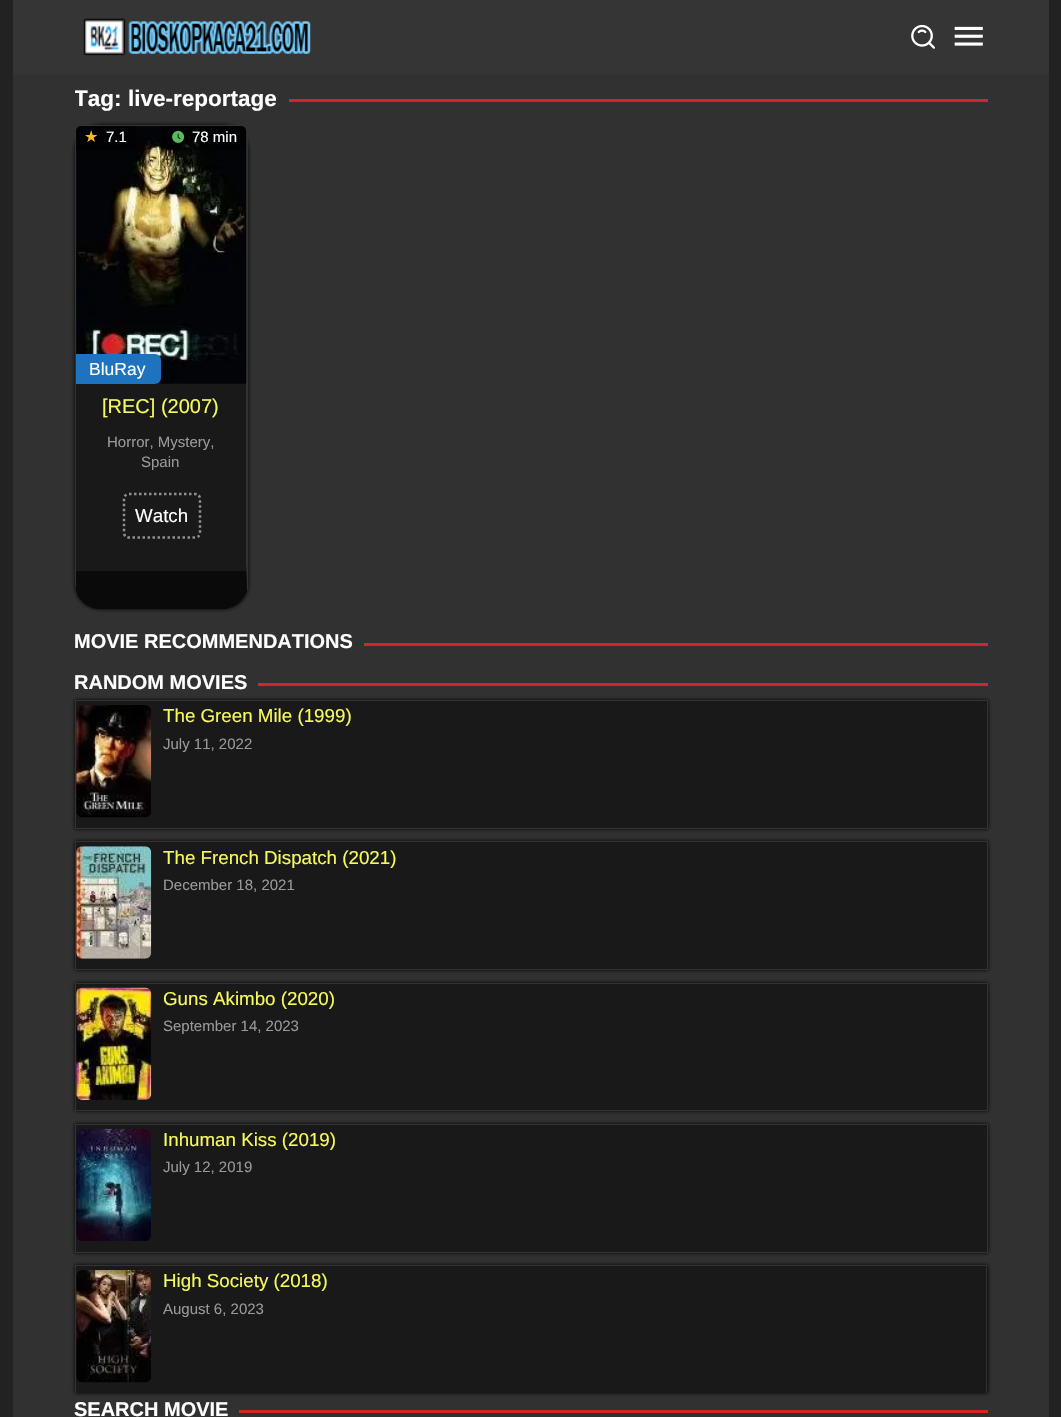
void draw(SkCanvas* canvas) {
  SkPaint paint;
  paint.setAntiAlias(true);
  auto face = [&](const char* family, int weight, float size, bool italic = false) {
    SkFontStyle style(weight, SkFontStyle::kNormal_Width,
      italic ? SkFontStyle::kItalic_Slant : SkFontStyle::kUpright_Slant);
    SkFont result(fontMgr->matchFamilyStyle(family, style), size);
    result.setSubpixel(true);
    return result;
  };
  auto paste = [&](const char* path, float x, float y, float w, float h) {
    auto image = SkImages::DeferredFromEncodedData(SkData::MakeFromFileName(path));
    canvas->drawImageRect(image, SkRect::MakeXYWH(x, y, w, h), SkSamplingOptions());
  };
  auto shape = [&](const char* data, bool evenOdd = false) {
    SkPath result = *SkParsePath::FromSVGString(data);
    if (evenOdd) result.setFillType(SkPathFillType::kEvenOdd);
    return result;
  };
  canvas->clear(0xff222222);
  paint.setColor(0xff353535);
  canvas->drawRect(SkRect::MakeXYWH(13, 0, 1036, 75), paint);
  paste("img/1.png", 83, 18, 228, 38);
  paste("img/2.png", 911, 24, 24, 25);
  paste("img/3.png", 954, 26, 29, 20);
  paint.setColor(0xff313131);
  canvas->drawRect(SkRect::MakeXYWH(13, 75, 1036, 1342), paint);
  paint.setColor(0xffd42626);
  canvas->drawRect(SkRect::MakeXYWH(289, 99, 699, 3), paint);
  paint.setColor(0xff000000);
  paint.setMaskFilter(SkMaskFilter::MakeBlur(kNormal_SkBlurStyle, 2));
  canvas->drawRoundRect(SkRect::MakeXYWH(75, 125, 173, 484), 25, 25, paint);
  paint.setMaskFilter(nullptr);
  paint.setColor(0xff191919);
  canvas->drawPath(shape("M81 126H241C244 126 246 128 246 131V571H76V131C76 128 78 126 81 126Z"), paint);
  paint.setColor(0xff333333);
  canvas->drawPath(shape("M81 125C80 125 78 126 77 127L80 126H241C242 126 244 127 245 128L246 127C245 126 243 125 241 125Z"), paint);
  canvas->drawPath(shape("M248 589L247 591L246 564V131C246 130 246 128 245 128L246 127L248 129Z"), paint);
  paint.setColor(0xff0a0a0a);
  canvas->drawPath(shape("M96 609C86 607 78 600 76 590V571H246V564L247 591C244 600 236 607 226 609Z"), paint);
  paint.setColor(0xff333333);
  canvas->drawPath(shape("M75 131V584L76 590V571V131C76 130 76 128 77 127C76 128 75 130 75 131Z"), paint);
  paste("img/4.png", 76, 126, 171, 258);
  paint.setColor(0x99000000);
  canvas->drawPath(shape("M81 126H136V150H76V131C76 128 78 126 81 126Z"), paint);
  canvas->drawPath(shape("M246 150H161V126H241C244 126 246 128 246 131Z"), paint);
  paste("img/5.png", 172, 130, 13, 13);
  paint.setColor(0xff1e73be);
  canvas->drawPath(shape("M76 384V354H155C158 354 161 357 161 360V378C161 381 158 384 155 384Z"), paint);
  paint.setStroke(true);
  paint.setStrokeWidth(2.5f);
  paint.setColor(0xff8f8f8f);
  paint.setPathEffect(SkDashPathEffect::Make({{2.5f, 2.5f}}, 0));
  canvas->drawPath(shape("M129 494H195C198 494 200 496 200 499V532.5C200 535.5 198 537.5 195 537.5H129C126 537.5 124 535.5 124 532.5V499C124 496 126 494 129 494Z"), paint);
  paint.setPathEffect(nullptr);
  paint.setStroke(false);
  paint.setColor(0xffd42626);
  canvas->drawRect(SkRect::MakeXYWH(364, 643, 624, 3), paint);
  canvas->drawRect(SkRect::MakeXYWH(258, 683, 730, 3), paint);
  paint.setColor(0xff000000);
  paint.setMaskFilter(SkMaskFilter::MakeBlur(kNormal_SkBlurStyle, 2));
  canvas->drawRect(SkRect::MakeXYWH(75, 700, 913, 129), paint);
  paint.setMaskFilter(nullptr);
  paint.setColor(0xff191919);
  canvas->drawRect(SkRect::MakeXYWH(75.5f, 700.5f, 912, 128), paint);
  paint.setStroke(true);
  paint.setStrokeWidth(1);
  paint.setColor(0xff333333);
  canvas->drawRect(SkRect::MakeXYWH(75.5f, 700.5f, 912, 128), paint);
  paste("img/6.png", 76, 705, 76, 113);
  paint.setStroke(false);
  paint.setColor(0xff000000);
  paint.setMaskFilter(SkMaskFilter::MakeBlur(kNormal_SkBlurStyle, 2));
  canvas->drawRect(SkRect::MakeXYWH(75, 841, 913, 129), paint);
  paint.setMaskFilter(nullptr);
  paint.setColor(0xff191919);
  canvas->drawRect(SkRect::MakeXYWH(75.5f, 841.5f, 912, 128), paint);
  paint.setStroke(true);
  paint.setColor(0xff333333);
  canvas->drawRect(SkRect::MakeXYWH(75.5f, 841.5f, 912, 128), paint);
  paste("img/7.png", 76, 846, 76, 113);
  paint.setStroke(false);
  paint.setColor(0xff000000);
  paint.setMaskFilter(SkMaskFilter::MakeBlur(kNormal_SkBlurStyle, 2));
  canvas->drawRect(SkRect::MakeXYWH(75, 983, 913, 128), paint);
  paint.setMaskFilter(nullptr);
  paint.setColor(0xff191919);
  canvas->drawRect(SkRect::MakeXYWH(75.5f, 983.5f, 912, 127), paint);
  paint.setStroke(true);
  paint.setColor(0xff333333);
  canvas->drawRect(SkRect::MakeXYWH(75.5f, 983.5f, 912, 127), paint);
  paste("img/8.png", 76, 987, 76, 113);
  paint.setStroke(false);
  paint.setColor(0xff000000);
  paint.setMaskFilter(SkMaskFilter::MakeBlur(kNormal_SkBlurStyle, 2));
  canvas->drawRect(SkRect::MakeXYWH(75, 1124, 913, 129), paint);
  paint.setMaskFilter(nullptr);
  paint.setColor(0xff191919);
  canvas->drawRect(SkRect::MakeXYWH(75.5f, 1124.5f, 912, 128), paint);
  paint.setStroke(true);
  paint.setColor(0xff333333);
  canvas->drawRect(SkRect::MakeXYWH(75.5f, 1124.5f, 912, 128), paint);
  paste("img/9.png", 76, 1128, 75, 113);
  paint.setStroke(false);
  paint.setColor(0xff000000);
  paint.setMaskFilter(SkMaskFilter::MakeBlur(kNormal_SkBlurStyle, 2));
  canvas->drawRect(SkRect::MakeXYWH(75, 1265, 913, 128), paint);
  paint.setMaskFilter(nullptr);
  {
    const struct { float x, y, w, h; SkColor color; } items[] = {
      {76, 1266, 912, 127, 0xff191919},
      {75, 1265, 913, 1, 0xff333333},
      {986, 1265, 1, 128, 0xff333333},
      {75, 1265, 1, 128, 0xff333333},
    };
    for (auto [x, y, w, h, color] : items) {
      paint.setColor(color);
      canvas->drawRect(SkRect::MakeXYWH(x, y, w, h), paint);
    }
  }
  paste("img/10.png", 76, 1270, 76, 113);
  paint.setColor(0xffd42626);
  canvas->drawRect(SkRect::MakeXYWH(239, 1410, 749, 3), paint);
  canvas->save();
  canvas->clipRect(SkRect::MakeXYWH(75, 88, 913, 25));
  auto f0 = face("Liberation Sans", 700, 22.5f);
  paint.setColor(0xffffffff);
  canvas->drawString("Tag:", 74, 106, f0, paint);
  canvas->restore();
  canvas->drawString("live-reportage", 128, 106, f0, paint);
  auto f1 = face("DejaVu Sans", 400, 16);
  paint.setColor(0xfffcbb23);
  canvas->drawString("★", 84, 142, f1, paint);
  auto f2 = face("Liberation Sans", 400, 15);
  paint.setColor(0xffffffff);
  canvas->drawString("7.1", 106, 142, f2, paint);
  canvas->drawString("78 min", 192, 142, f2, paint);
  auto f3 = face("Liberation Sans", 400, 17.5f);
  canvas->drawString("BluRay", 89, 375, f3, paint);
  auto f4 = face("Liberation Sans", 400, 20);
  paint.setColor(0xfff6f95d);
  canvas->drawString("[REC] (2007)", 102, 413, f4, paint);
  paint.setColor(0xff999999);
  canvas->drawString("Horror, Mystery,", 107, 447, f2, paint);
  canvas->drawString("Spain", 141, 467, f2, paint);
  auto f5 = face("Liberation Sans", 400, 18.75f);
  paint.setColor(0xffffffff);
  canvas->drawString("Watch", 135, 522, f5, paint);
  auto f6 = face("Liberation Sans", 700, 20);
  canvas->drawString("MOVIE RECOMMENDATIONS", 74, 648, f6, paint);
  canvas->drawString("RANDOM MOVIES", 74, 689, f6, paint);
  paint.setColor(0xfff6f95d);
  canvas->drawString("The Green Mile (1999)", 163, 722, f5, paint);
  paint.setColor(0xff999999);
  canvas->drawString("July 11, 2022", 163, 749, f2, paint);
  paint.setColor(0xfff6f95d);
  canvas->drawString("The French Dispatch (2021)", 163, 864, f5, paint);
  paint.setColor(0xff999999);
  canvas->drawString("December 18, 2021", 163, 890, f2, paint);
  paint.setColor(0xfff6f95d);
  canvas->drawString("Guns Akimbo (2020)", 163, 1005, f5, paint);
  paint.setColor(0xff999999);
  canvas->drawString("September 14, 2023", 163, 1031, f2, paint);
  paint.setColor(0xfff6f95d);
  canvas->drawString("Inhuman Kiss (2019)", 163, 1146, f5, paint);
  paint.setColor(0xff999999);
  canvas->drawString("July 12, 2019", 163, 1172, f2, paint);
  paint.setColor(0xfff6f95d);
  canvas->drawString("High Society (2018)", 163, 1287, f5, paint);
  paint.setColor(0xff999999);
  canvas->drawString("August 6, 2023", 163, 1314, f2, paint);
  paint.setColor(0xffffffff);
  canvas->drawString("SEARCH MOVIE", 74, 1416, f6, paint);
}
